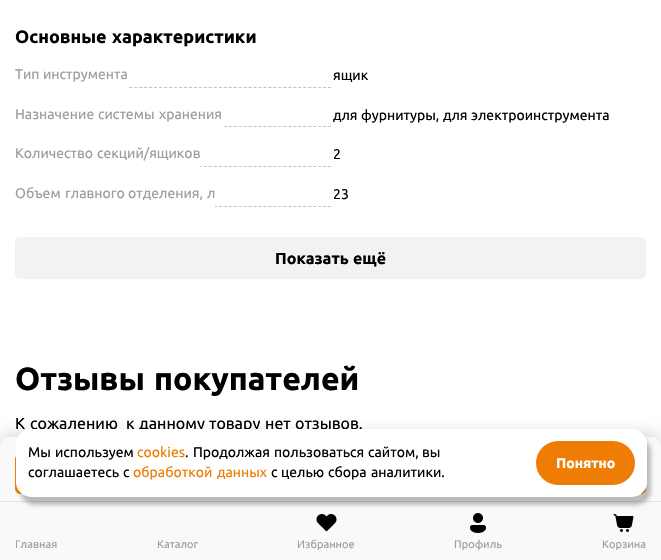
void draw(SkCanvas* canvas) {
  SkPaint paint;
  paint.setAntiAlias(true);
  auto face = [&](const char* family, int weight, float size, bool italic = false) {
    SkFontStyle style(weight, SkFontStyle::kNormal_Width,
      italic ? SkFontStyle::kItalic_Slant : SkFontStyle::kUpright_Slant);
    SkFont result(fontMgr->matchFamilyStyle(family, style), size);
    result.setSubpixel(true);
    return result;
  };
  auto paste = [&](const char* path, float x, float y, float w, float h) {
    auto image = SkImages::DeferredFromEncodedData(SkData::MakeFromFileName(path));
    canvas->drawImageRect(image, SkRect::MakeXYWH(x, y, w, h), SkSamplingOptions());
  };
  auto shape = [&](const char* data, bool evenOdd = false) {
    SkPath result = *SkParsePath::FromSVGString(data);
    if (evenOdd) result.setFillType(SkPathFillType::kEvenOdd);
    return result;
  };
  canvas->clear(0xffffffff);
  paint.setStroke(true);
  paint.setStrokeWidth(1);
  paint.setColor(0xffc1c1c1);
  paint.setPathEffect(SkDashPathEffect::Make({{3, 1.97f}}, 0));
  canvas->drawPath(shape("M15 87.5H331"), paint);
  paint.setPathEffect(nullptr);
  paint.setStroke(false);
  paint.setColor(0xffffffff);
  canvas->drawRect(SkRect::MakeXYWH(15, 87, 113, 1), paint);
  paint.setStroke(true);
  paint.setColor(0xffc1c1c1);
  paint.setPathEffect(SkDashPathEffect::Make({{3, 1.97f}}, 0));
  canvas->drawPath(shape("M15 126.5H331"), paint);
  paint.setPathEffect(nullptr);
  paint.setStroke(false);
  paint.setColor(0xffffffff);
  canvas->drawRect(SkRect::MakeXYWH(15, 126, 207, 1), paint);
  paint.setStroke(true);
  paint.setColor(0xffc1c1c1);
  paint.setPathEffect(SkDashPathEffect::Make({{3, 1.97f}}, 0));
  canvas->drawPath(shape("M15 166.5H331"), paint);
  paint.setPathEffect(nullptr);
  paint.setStroke(false);
  paint.setColor(0xffffffff);
  canvas->drawRect(SkRect::MakeXYWH(15, 166, 185, 1), paint);
  paint.setStroke(true);
  paint.setColor(0xffc1c1c1);
  paint.setPathEffect(SkDashPathEffect::Make({{3, 1.97f}}, 0));
  canvas->drawPath(shape("M15 206.5H331"), paint);
  paint.setPathEffect(nullptr);
  paint.setStroke(false);
  paint.setColor(0xffffffff);
  canvas->drawRect(SkRect::MakeXYWH(15, 206, 200, 1), paint);
  paint.setColor(0xfff2f2f2);
  canvas->drawRoundRect(SkRect::MakeXYWH(15.5f, 237.5f, 630, 41), 4.5f, 4.5f, paint);
  paint.setStroke(true);
  canvas->drawRoundRect(SkRect::MakeXYWH(15.5f, 237.5f, 630, 41), 4.5f, 4.5f, paint);
  paint.setStroke(false);
  paint.setColor(0x26000000);
  paint.setMaskFilter(SkMaskFilter::MakeBlur(kNormal_SkBlurStyle, 7.5f));
  canvas->drawRoundRect(SkRect::MakeXYWH(0, 433, 661, 65), 10, 10, paint);
  paint.setMaskFilter(nullptr);
  paint.setColor(0xfff9f9f9);
  canvas->drawPath(shape("M10 437H651C656.5 437 661 441.5 661 447V502H0V447C0 441.5 4.5 437 10 437Z"), paint);
  paint.setColor(0xffef7d05);
  canvas->drawRoundRect(SkRect::MakeXYWH(15.5f, 454.5f, 630, 39), 4.5f, 4.5f, paint);
  paint.setStroke(true);
  canvas->drawRoundRect(SkRect::MakeXYWH(15.5f, 454.5f, 630, 39), 4.5f, 4.5f, paint);
  paint.setStroke(false);
  paint.setColor(0xfff9f9f9);
  canvas->drawRect(SkRect::MakeXYWH(0, 502, 661, 58), paint);
  paint.setColor(0xffe2e1e6);
  canvas->drawRect(SkRect::MakeXYWH(0, 501, 661, 1), paint);
  paste("img/1.png", 316, 514, 21, 18);
  paste("img/2.png", 470, 513, 16, 20);
  paste("img/3.png", 613, 514, 21, 18);
  paint.setColor(0x40000000);
  paint.setMaskFilter(SkMaskFilter::MakeBlur(kNormal_SkBlurStyle, 2));
  canvas->drawRoundRect(SkRect::MakeXYWH(20, 437, 631, 68), 15, 15, paint);
  paint.setMaskFilter(nullptr);
  auto f0 = face("Ubuntu", 700, 18);
  paint.setColor(0xff000000);
  canvas->drawString("Основные", 15, 43, f0, paint);
  canvas->drawString("характеристики", 112, 43, f0, paint);
  auto f1 = face("Ubuntu", 400, 14);
  paint.setColor(0xff9d9d9d);
  canvas->drawString("Тип", 15, 79, f1, paint);
  canvas->drawString("инструмента", 43, 79, f1, paint);
  paint.setColor(0xff000000);
  canvas->drawString("ящик", 333, 80, f1, paint);
  paint.setColor(0xff9d9d9d);
  {
    const struct { const char* s; float x, y; } items[] = {
      {"Назначение", 15, 119},
      {"системы", 98, 119},
      {"хранения", 159, 119},
    };
    for (auto [s, x, y] : items) {
      canvas->drawString(s, x, y, f1, paint);
    }
  }
  paint.setColor(0xff000000);
  {
    const struct { const char* s; float x, y; } items[] = {
      {"для", 333, 120},
      {"фурнитуры,", 361, 120},
      {"для", 443, 120},
      {"электроинструмента", 471, 120},
    };
    for (auto [s, x, y] : items) {
      canvas->drawString(s, x, y, f1, paint);
    }
  }
  paint.setColor(0xff9d9d9d);
  canvas->drawString("Количество", 15, 158, f1, paint);
  canvas->drawString("секций/ящиков", 97, 158, f1, paint);
  paint.setColor(0xff000000);
  canvas->drawString("2", 333, 159, f1, paint);
  paint.setColor(0xff9d9d9d);
  {
    const struct { const char* s; float x, y; } items[] = {
      {"Объем", 15, 198},
      {"главного", 65, 198},
      {"отделения,", 128, 198},
      {"л", 207, 198},
    };
    for (auto [s, x, y] : items) {
      canvas->drawString(s, x, y, f1, paint);
    }
  }
  paint.setColor(0xff000000);
  canvas->drawString("23", 333, 199, f1, paint);
  auto f2 = face("Ubuntu", 700, 16);
  canvas->drawString("Показать", 275, 264, f2, paint);
  canvas->drawString("ещё", 353, 264, f2, paint);
  auto f3 = face("Ubuntu", 700, 32);
  canvas->drawString("Отзывы", 15, 390, f3, paint);
  canvas->drawString("покупателей", 154, 390, f3, paint);
  auto f4 = face("Ubuntu", 400, 16);
  {
    const struct { const char* s; float x, y; } items[] = {
      {"К", 15, 429},
      {"сожалению", 30, 429},
      {"к", 126, 429},
      {"данному", 139, 429},
      {"товару", 209, 429},
      {"нет", 265, 429},
      {"отзывов.", 295, 429},
    };
    for (auto [s, x, y] : items) {
      canvas->drawString(s, x, y, f4, paint);
    }
  }
  auto f5 = face("Ubuntu", 400, 11);
  paint.setColor(0xff9d9d9d);
  {
    const struct { const char* s; float x, y; } items[] = {
      {"Главная", 15, 548},
      {"Каталог", 157, 548},
      {"Избранное", 297, 548},
      {"Профиль", 454, 548},
      {"Корзина", 602, 548},
    };
    for (auto [s, x, y] : items) {
      canvas->drawString(s, x, y, f5, paint);
    }
  }
  paint.setColor(0xffffffff);
  canvas->drawRoundRect(SkRect::MakeXYWH(16, 429, 631, 68), 15, 15, paint);
  paint.setColor(0xff000000);
  canvas->drawString("Мы", 28, 457, f1, paint);
  canvas->drawString("используем", 55, 457, f1, paint);
  paint.setColor(0xffef7d05);
  canvas->drawString("cookies", 137, 457, f1, paint);
  paint.setColor(0xff000000);
  {
    const struct { const char* s; float x, y; } items[] = {
      {".", 185, 457},
      {"Продолжая", 193, 457},
      {"пользоваться", 274, 457},
      {"сайтом,", 368, 457},
      {"вы", 422, 457},
      {"соглашаетесь", 28, 477},
      {"с", 123, 477},
    };
    for (auto [s, x, y] : items) {
      canvas->drawString(s, x, y, f1, paint);
    }
  }
  paint.setColor(0xffef7d05);
  canvas->drawString("обработкой", 133, 477, f1, paint);
  canvas->drawString("данных", 217, 477, f1, paint);
  paint.setColor(0xff000000);
  {
    const struct { const char* s; float x, y; } items[] = {
      {"с", 271, 477},
      {"целью", 281, 477},
      {"сбора", 328, 477},
      {"аналитики.", 371, 477},
    };
    for (auto [s, x, y] : items) {
      canvas->drawString(s, x, y, f1, paint);
    }
  }
  paint.setColor(0xffef7d05);
  canvas->drawRoundRect(SkRect::MakeXYWH(536, 441, 99, 44), 22, 22, paint);
  auto f6 = face("Ubuntu", 700, 14);
  paint.setColor(0xffffffff);
  canvas->drawString("Понятно", 556, 468, f6, paint);
}
